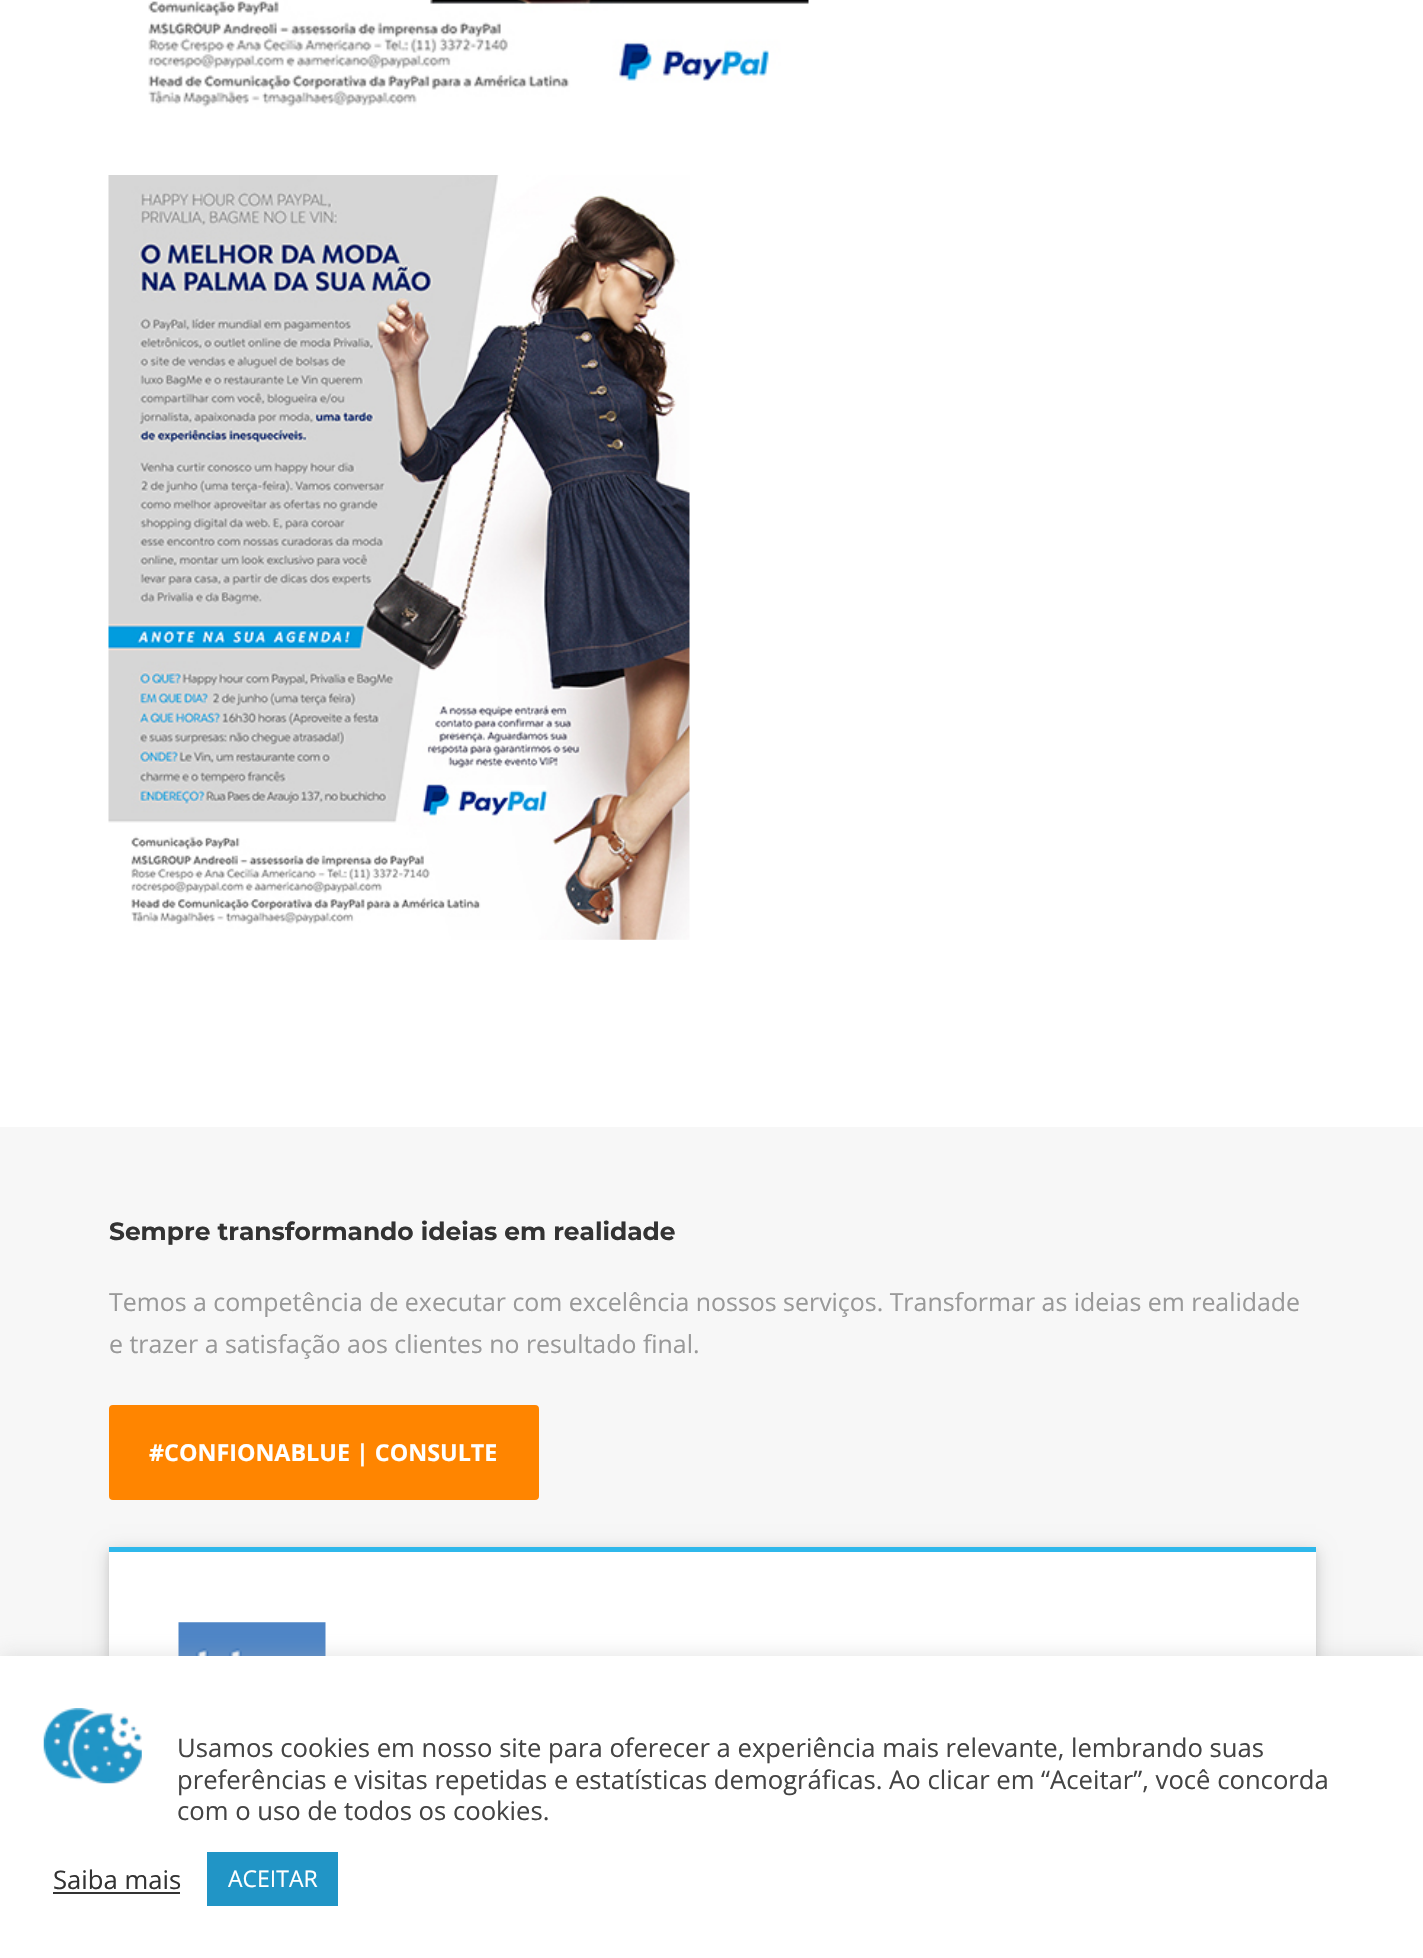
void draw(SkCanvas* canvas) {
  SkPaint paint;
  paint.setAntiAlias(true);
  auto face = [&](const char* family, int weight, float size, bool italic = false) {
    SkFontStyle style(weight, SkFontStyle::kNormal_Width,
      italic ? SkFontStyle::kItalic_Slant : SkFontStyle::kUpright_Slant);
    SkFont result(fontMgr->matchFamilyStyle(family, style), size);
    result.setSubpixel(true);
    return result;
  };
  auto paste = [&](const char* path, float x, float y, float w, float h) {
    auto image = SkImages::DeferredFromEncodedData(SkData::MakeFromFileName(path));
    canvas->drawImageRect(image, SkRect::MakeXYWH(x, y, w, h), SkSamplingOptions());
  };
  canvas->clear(0xffffffff);
  paste("img/1.png", 148, 0, 661, 108);
  paste("img/2.png", 108, 175, 582, 765);
  paint.setColor(0xfff7f7f7);
  canvas->drawRect(SkRect::MakeXYWH(0, 1127, 1423, 529), paint);
  paint.setColor(0xffff8500);
  canvas->drawRoundRect(SkRect::MakeXYWH(110, 1406, 428, 93), 3, 3, paint);
  paint.setStroke(true);
  paint.setStrokeWidth(2);
  canvas->drawRoundRect(SkRect::MakeXYWH(110, 1406, 428, 93), 3, 3, paint);
  paint.setStroke(false);
  paint.setColor(0x26000000);
  paint.setMaskFilter(SkMaskFilter::MakeBlur(kNormal_SkBlurStyle, 9));
  canvas->drawRect(SkRect::MakeXYWH(109, 1551, 1207, 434), paint);
  paint.setMaskFilter(nullptr);
  paint.setColor(0x1a000000);
  paint.setMaskFilter(SkMaskFilter::MakeBlur(kNormal_SkBlurStyle, 3.5f));
  canvas->drawRect(SkRect::MakeXYWH(109, 1551, 1207, 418), paint);
  paint.setMaskFilter(nullptr);
  paint.setColor(0xffffffff);
  canvas->drawRect(SkRect::MakeXYWH(109, 1552, 1207, 104), paint);
  paint.setColor(0xff2fb8eb);
  canvas->drawRect(SkRect::MakeXYWH(109, 1547, 1207, 5), paint);
  paste("img/3.png", 178, 1622, 148, 34);
  paint.setColor(0x4dacabab);
  paint.setMaskFilter(SkMaskFilter::MakeBlur(kNormal_SkBlurStyle, 9));
  canvas->drawRect(SkRect::MakeXYWH(0, 1654, 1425, 303), paint);
  paint.setMaskFilter(nullptr);
  paint.setColor(0xffffffff);
  canvas->drawRect(SkRect::MakeXYWH(0, 1656, 1423, 302), paint);
  paste("img/4.png", 43, 1708, 99, 76);
  paint.setColor(0xff333333);
  canvas->drawRect(SkRect::MakeXYWH(53, 1892, 127, 2), paint);
  paint.setColor(0xff2195c6);
  canvas->drawRect(SkRect::MakeXYWH(207, 1852, 131, 54), paint);
  auto f0 = face("Montserrat", 100, 24.9f);
  paint.setColor(0xff333333);
  canvas->drawString("Sempre transformando ideias em realidade", 109, 1240, f0, paint);
  auto f1 = face("Open Sans", 400, 24.9f);
  paint.setColor(0xff999999);
  canvas->drawString("Temos a competência de executar com excelência nossos serviços. Transformar as ideias em realidade", 109, 1311, f1, paint);
  canvas->drawString("e trazer a satisfação aos clientes no resultado final.", 109, 1353, f1, paint);
  auto f2 = face("Open Sans", 700, 23.3f);
  paint.setColor(0xffffffff);
  canvas->drawString("#CONFIONABLUE | CONSULTE", 149, 1461, f2, paint);
  auto f3 = face("Open Sans", 400, 25.65f);
  paint.setColor(0xff444444);
  {
    const struct { const char* s; float x, y; } items[] = {
      {"Usamos cookies em nosso site para oferecer a experiência mais relevante, lembrando suas", 177, 1757},
      {"preferências e visitas repetidas e estatísticas demográficas. Ao clicar em “Aceitar”, você concorda", 177, 1789},
      {"com o uso de todos os cookies.", 177, 1820},
    };
    for (auto [s, x, y] : items) {
      canvas->drawString(s, x, y, f3, paint);
    }
  }
  paint.setColor(0xff333333);
  canvas->drawString("Saiba mais", 53, 1889, f3, paint);
  auto f4 = face("Open Sans", 400, 23);
  paint.setColor(0xffffffff);
  canvas->drawString("ACEITAR", 228, 1887, f4, paint);
}
